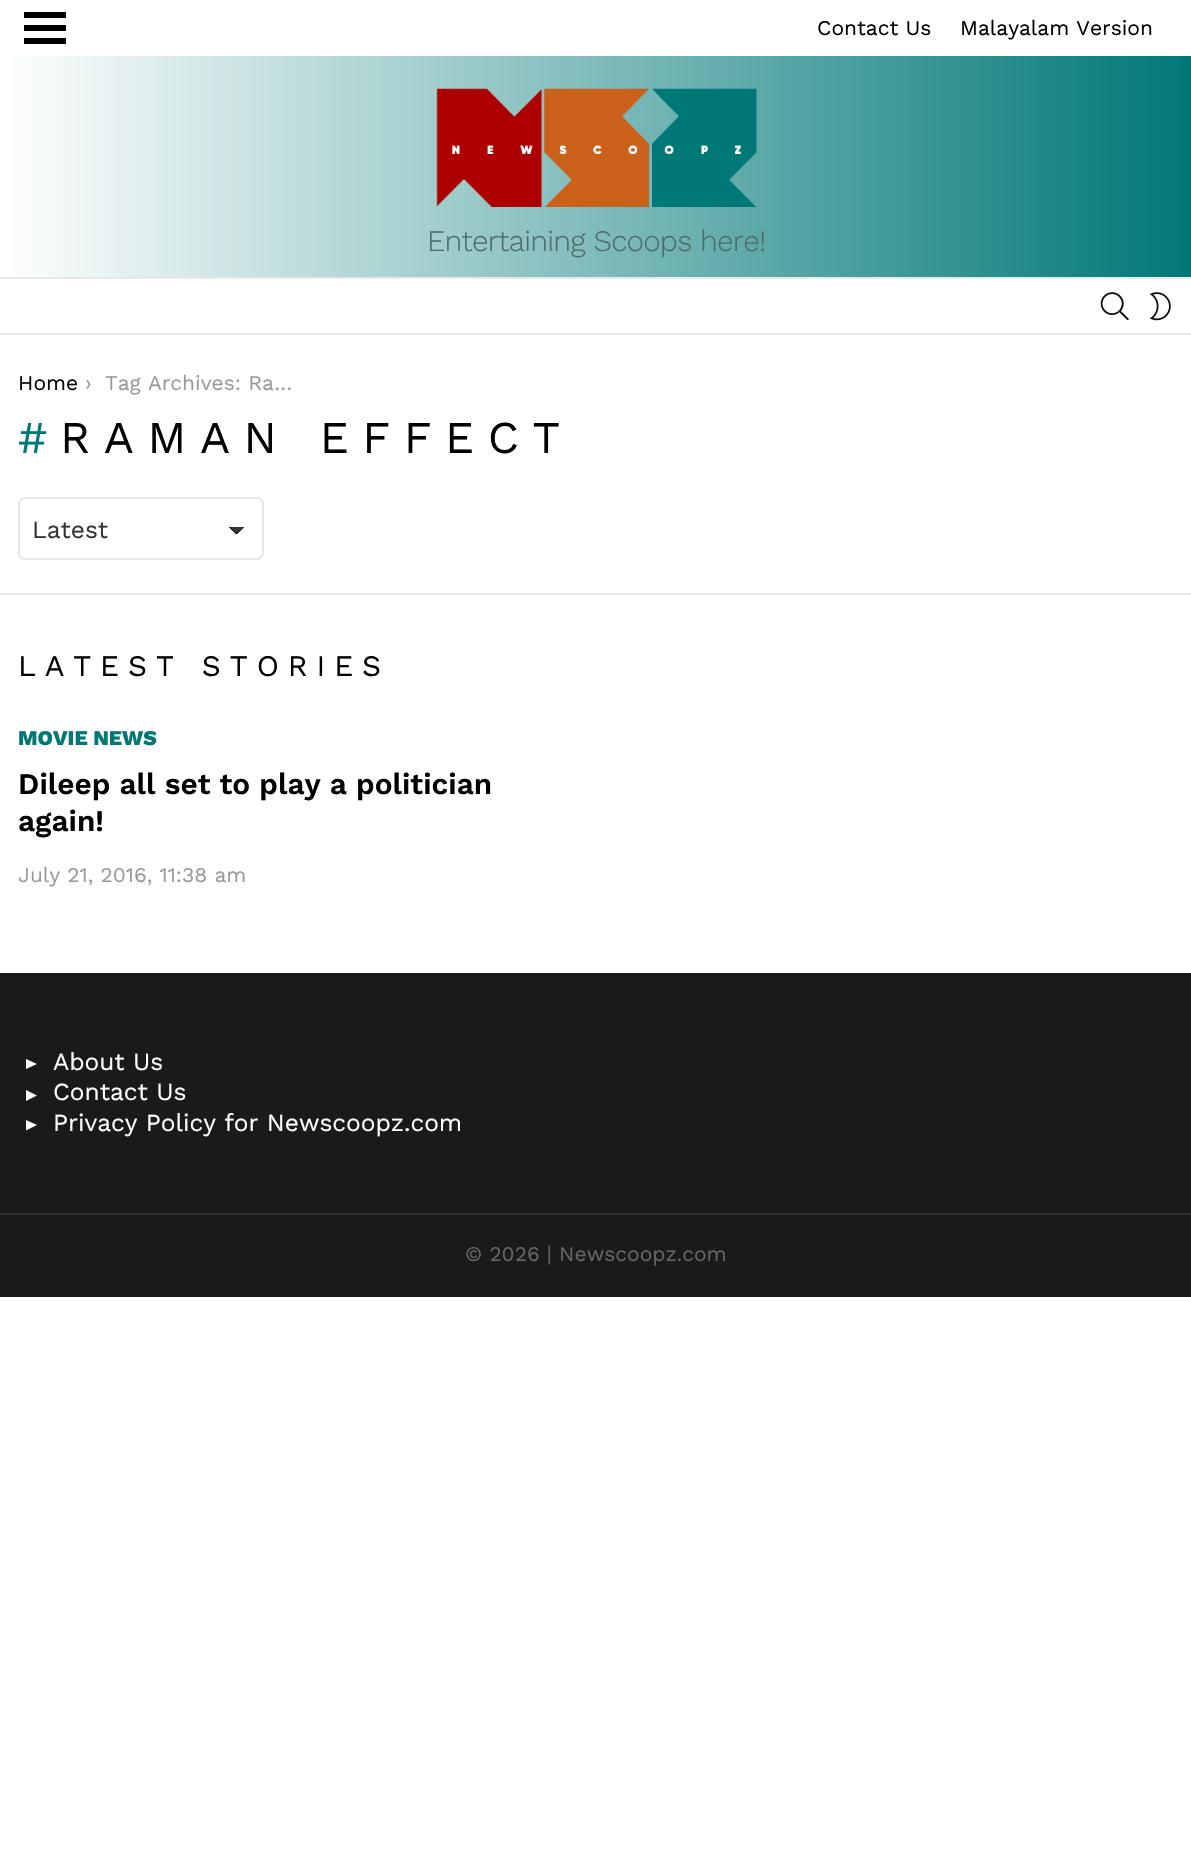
void draw(SkCanvas* canvas) {
  SkPaint paint;
  paint.setAntiAlias(true);
  auto face = [&](const char* family, int weight, float size, bool italic = false) {
    SkFontStyle style(weight, SkFontStyle::kNormal_Width,
      italic ? SkFontStyle::kItalic_Slant : SkFontStyle::kUpright_Slant);
    SkFont result(fontMgr->matchFamilyStyle(family, style), size);
    result.setSubpixel(true);
    return result;
  };
  auto writeSpaced = [&](const char* s, float x, float y, const SkFont& font, const SkPaint& ink, float letter, float word) {
    std::vector<SkGlyphID> glyphs(font.countText(s, strlen(s), SkTextEncoding::kUTF8));
    std::vector<float> xs(glyphs.size());
    font.textToGlyphs(s, strlen(s), SkTextEncoding::kUTF8, glyphs);
    font.getXPos(glyphs, xs, x);
    float extra = 0;
    for (size_t i = 0; i < glyphs.size(); i++) {
      xs[i] += extra;
      extra += letter + word * (glyphs[i] == font.unicharToGlyph(' '));
    }
    canvas->drawTextBlob(SkTextBlob::MakeFromPosHGlyphs(glyphs, xs, y, font), 0, 0, ink);
  };
  auto paste = [&](const char* path, float x, float y, float w, float h) {
    auto image = SkImages::DeferredFromEncodedData(SkData::MakeFromFileName(path));
    canvas->drawImageRect(image, SkRect::MakeXYWH(x, y, w, h), SkSamplingOptions());
  };
  auto shape = [&](const char* data, bool evenOdd = false) {
    SkPath result = *SkParsePath::FromSVGString(data);
    if (evenOdd) result.setFillType(SkPathFillType::kEvenOdd);
    return result;
  };
  canvas->clear(0xffffffff);
  paint.setColor(0xff000000);
  canvas->drawPath(shape("M24 12H66V18H24ZM24 25H66V31H24ZM24 38H66V44H24Z"), paint);
  {
    const SkColor colors[] = {0xffffffff, 0xff007877};
    const float stops[] = {0, 1};
    const SkPoint ends[] = {{0, 166}, {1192, 166}};
    paint.setShader(SkGradientShader::MakeLinear(ends, colors, stops, 2, SkTileMode::kClamp));
    paint.setAlpha(255);
  }
  canvas->drawRect(SkRect::MakeXYWH(12, 56, 1179, 221), paint);
  paint.setShader(nullptr);
  paint.setColor(0xffe9e9e9);
  canvas->drawRect(SkRect::MakeXYWH(0, 277, 1191, 2), paint);
  paste("img/1.png", 436, 88, 321, 119);
  paste("img/2.png", 1100, 292, 29, 29);
  paste("img/3.png", 1149, 292, 22, 29);
  canvas->drawRect(SkRect::MakeXYWH(0, 333, 1191, 2), paint);
  {
    const SkColor colors[] = {0xff333333, 0xffffffff};
    const float stops[] = {0.5f, 0.5f};
    const SkPoint ends[] = {{237, 526}, {245, 534}};
    paint.setShader(SkGradientShader::MakeLinear(ends, colors, stops, 2, SkTileMode::kClamp));
    paint.setAlpha(255);
  }
  canvas->drawRect(SkRect::MakeXYWH(236, 527, 9, 7), paint);
  {
    const SkColor colors[] = {0xffffffff, 0xff333333};
    const float stops[] = {0.5f, 0.5f};
    const SkPoint ends[] = {{228, 534}, {236, 526}};
    paint.setShader(SkGradientShader::MakeLinear(ends, colors, stops, 2, SkTileMode::kClamp));
    paint.setAlpha(255);
  }
  canvas->drawRect(SkRect::MakeXYWH(228, 527, 8, 7), paint);
  paint.setStroke(true);
  paint.setStrokeWidth(2);
  paint.setShader(nullptr);
  paint.setColor(0xffe6e6e6);
  canvas->drawRoundRect(SkRect::MakeXYWH(19, 498, 244, 61), 6, 6, paint);
  paint.setStroke(false);
  canvas->drawRect(SkRect::MakeXYWH(0, 593, 1191, 2), paint);
  paint.setColor(0xff1a1a1a);
  canvas->drawRect(SkRect::MakeXYWH(0, 973, 1191, 240), paint);
  paint.setColor(0xffffffff);
  canvas->drawPath(shape("M37 1064L26 1059V1069Z"), paint);
  canvas->drawPath(shape("M37 1095.5L26 1090V1101Z"), paint);
  canvas->drawPath(shape("M37 1125L26 1120V1130.5Z"), paint);
  paint.setColor(0xff2f2f2f);
  canvas->drawRect(SkRect::MakeXYWH(0, 1213, 1191, 2), paint);
  paint.setColor(0xff1a1a1a);
  canvas->drawRect(SkRect::MakeXYWH(0, 1215, 1191, 82), paint);
  auto f0 = face("Work Sans", 400, 21);
  paint.setColor(0xff000000);
  canvas->drawString("Contact Us", 817, 35, f0, paint);
  canvas->drawString("Malayalam Version", 960, 35, f0, paint);
  auto f1 = face("Work Sans", 300, 29.75f);
  paint.setColor(0xff4d6b6b);
  writeSpaced("Entertaining Scoops here!", 427, 251, f1, paint, -0.75f, 0);
  paint.setColor(0xff000000);
  canvas->drawString("Home", 18, 390, f0, paint);
  paint.setColor(0xff999999);
  canvas->drawString("›", 85, 390, f0, paint);
  canvas->drawString("Tag Archives: Ra…", 105, 390, f0, paint);
  auto f2 = face("Work Sans", 400, 45.5f);
  paint.setColor(0xff007877);
  writeSpaced("#", 18, 453, f2, paint, 13.6f, 0);
  paint.setColor(0xff000000);
  writeSpaced("RAMAN EFFECT", 60, 453, f2, paint, 13.6f, 0);
  auto f3 = face("Work Sans", 400, 24.5f);
  paint.setColor(0xff333333);
  canvas->drawString("Latest", 32, 538, f3, paint);
  auto f4 = face("Work Sans", 400, 29.75f);
  paint.setColor(0xff000000);
  writeSpaced("LATEST STORIES", 18, 676, f4, paint, 8.9f, 0);
  auto f5 = face("Work Sans", 800, 21);
  paint.setColor(0xff007877);
  canvas->drawString("MOVIE NEWS", 18, 745, f5, paint);
  auto f6 = face("Work Sans", 600, 29.75f);
  paint.setColor(0xff000000);
  canvas->drawString("Dileep all set to play a politician", 18, 794, f6, paint);
  canvas->drawString("again!", 18, 831, f6, paint);
  paint.setColor(0xff999999);
  canvas->drawString("July 21, 2016, 11:38 am", 18, 882, f0, paint);
  paint.setColor(0xffffffff);
  {
    const struct { const char* s; float x, y; } items[] = {
      {"About Us", 53, 1070},
      {"Contact Us", 53, 1100},
      {"Privacy Policy for Newscoopz.com", 53, 1131},
    };
    for (auto [s, x, y] : items) {
      canvas->drawString(s, x, y, f3, paint);
    }
  }
  paint.setColor(0xff666666);
  canvas->drawString("© 2026 | Newscoopz.com", 465, 1261, f0, paint);
}
